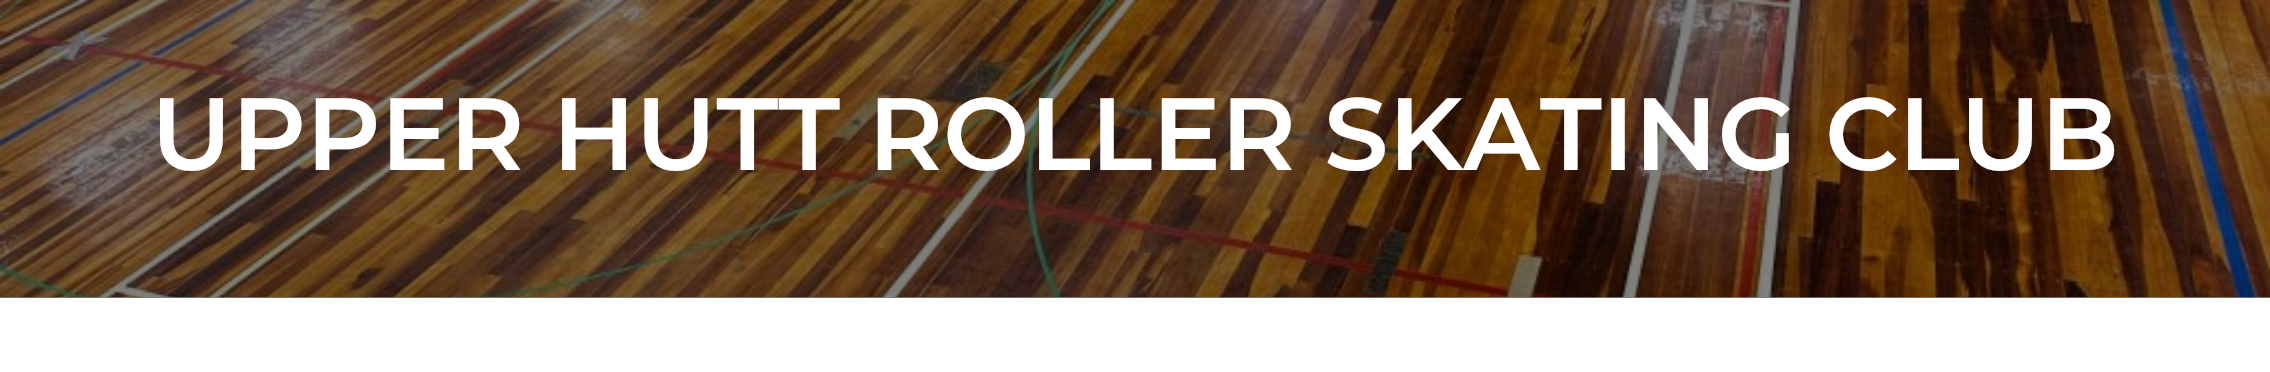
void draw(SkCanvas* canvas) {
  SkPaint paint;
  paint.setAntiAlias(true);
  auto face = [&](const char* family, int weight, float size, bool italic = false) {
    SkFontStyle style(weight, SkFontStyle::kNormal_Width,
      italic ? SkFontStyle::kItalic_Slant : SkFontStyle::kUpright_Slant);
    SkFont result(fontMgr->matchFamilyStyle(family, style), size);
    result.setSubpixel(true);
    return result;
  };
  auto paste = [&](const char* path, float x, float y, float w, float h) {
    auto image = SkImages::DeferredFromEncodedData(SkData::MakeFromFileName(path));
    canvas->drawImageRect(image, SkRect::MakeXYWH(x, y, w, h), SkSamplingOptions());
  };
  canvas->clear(0xffffffff);
  paint.setColor(0xff808080);
  canvas->drawRect(SkRect::MakeXYWH(0, 297, 2270, 1), paint);
  paste("img/1.png", 0, 0, 2270, 298);
  auto f0 = face("Montserrat", 600, 102.5f);
  paint.setColor(0xffffffff);
  canvas->drawString("UPPER HUTT ROLLER SKATING CLUB", 151, 170, f0, paint);
}
